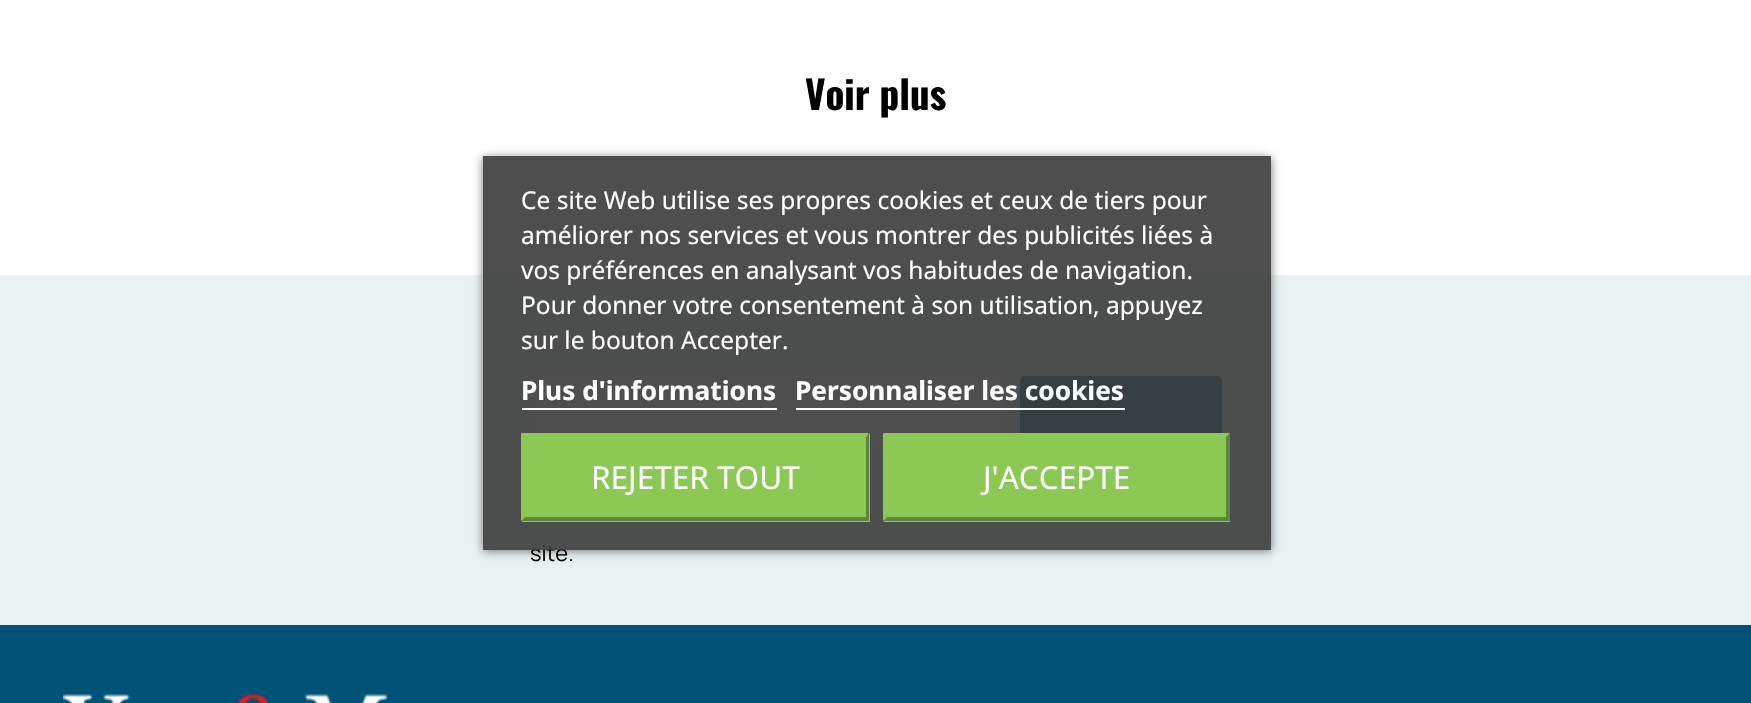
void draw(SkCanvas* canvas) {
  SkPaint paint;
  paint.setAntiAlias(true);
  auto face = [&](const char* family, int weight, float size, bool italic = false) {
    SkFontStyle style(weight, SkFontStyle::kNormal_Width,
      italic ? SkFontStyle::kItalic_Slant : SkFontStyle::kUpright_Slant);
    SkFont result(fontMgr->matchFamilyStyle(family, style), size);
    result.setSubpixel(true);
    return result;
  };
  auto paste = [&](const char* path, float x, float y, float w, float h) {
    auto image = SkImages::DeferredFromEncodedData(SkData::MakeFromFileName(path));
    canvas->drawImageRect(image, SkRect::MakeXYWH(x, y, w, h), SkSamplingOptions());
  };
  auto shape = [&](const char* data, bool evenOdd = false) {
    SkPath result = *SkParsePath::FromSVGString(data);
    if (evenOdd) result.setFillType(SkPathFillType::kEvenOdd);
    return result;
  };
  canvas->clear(0xffffffff);
  paint.setColor(0xffeaf1f3);
  canvas->drawRect(SkRect::MakeXYWH(0, 275, 1751, 350), paint);
  paint.setColor(0xffffffff);
  canvas->drawRoundRect(SkRect::MakeXYWH(530, 376, 476, 74), 9, 9, paint);
  paint.setColor(0xff005676);
  canvas->drawRoundRect(SkRect::MakeXYWH(1020, 376, 202, 74), 5, 5, paint);
  paint.setColor(0xff005376);
  canvas->drawRect(SkRect::MakeXYWH(0, 625, 1751, 78), paint);
  canvas->save();
  canvas->clipPath(shape("M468 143H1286V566H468ZM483 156H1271V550H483Z", true), true);
  paint.setColor(0xff707070);
  paint.setMaskFilter(SkMaskFilter::MakeBlur(kNormal_SkBlurStyle, 4.5f));
  canvas->drawRect(SkRect::MakeXYWH(483, 158, 788, 393), paint);
  paint.setMaskFilter(nullptr);
  canvas->restore();
  paste("img/1.png", 63, 694, 325, 9);
  auto f0 = face("Oswald", 700, 39);
  paint.setColor(0xff000000);
  canvas->drawString("Voir plus", 805, 110, f0, paint);
  auto f1 = face("Manrope", 400, 21);
  canvas->drawString("site.", 530, 561, f1, paint);
  paint.setColor(0xe63b3b3b);
  canvas->drawRect(SkRect::MakeXYWH(483, 156, 788, 394), paint);
  auto f2 = face("Noto Sans", 400, 24.5f);
  paint.setColor(0xffffffff);
  {
    const struct { const char* s; float x, y; } items[] = {
      {"Ce site Web utilise ses propres cookies et ceux de tiers pour", 521, 209},
      {"améliorer nos services et vous montrer des publicités liées à", 521, 244},
      {"vos préférences en analysant vos habitudes de navigation.", 521, 279},
      {"Pour donner votre consentement à son utilisation, appuyez", 521, 314},
      {"sur le bouton Accepter.", 521, 349},
    };
    for (auto [s, x, y] : items) {
      canvas->drawString(s, x, y, f2, paint);
    }
  }
  auto f3 = face("Noto Sans", 700, 26.25f);
  canvas->drawString("Plus d'informations", 521, 400, f3, paint);
  canvas->drawRect(SkRect::MakeXYWH(522, 408, 255, 2), paint);
  canvas->drawString("Personnaliser les cookies", 795, 400, f3, paint);
  canvas->drawRect(SkRect::MakeXYWH(796, 408, 329, 2), paint);
  paint.setColor(0xff8bc954);
  canvas->drawRect(SkRect::MakeXYWH(522, 434, 348, 88), paint);
  canvas->drawPath(shape("M521 433H869L866 437H525Z"), paint);
  paint.setColor(0xff5d8638);
  canvas->drawPath(shape("M869 433V521L866 517V437Z"), paint);
  canvas->drawPath(shape("M869 521H521L525 517H866Z"), paint);
  paint.setColor(0xff8bc954);
  canvas->drawPath(shape("M521 521V433L525 437V517Z"), paint);
  auto f4 = face("Noto Sans", 400, 31.5f);
  paint.setColor(0xffffffff);
  canvas->drawString("REJETER TOUT", 591, 489, f4, paint);
  paint.setColor(0xff8bc954);
  canvas->drawRect(SkRect::MakeXYWH(884, 434, 346, 88), paint);
  canvas->drawPath(shape("M883 433H1230L1226 437H887Z"), paint);
  paint.setColor(0xff5d8638);
  canvas->drawPath(shape("M1230 433V521L1226 517V437Z"), paint);
  canvas->drawPath(shape("M1230 521H883L887 517H1226Z"), paint);
  paint.setColor(0xff8bc954);
  canvas->drawPath(shape("M883 521V433L887 437V517Z"), paint);
  paint.setColor(0xffffffff);
  canvas->drawString("J'ACCEPTE", 983, 489, f4, paint);
}
